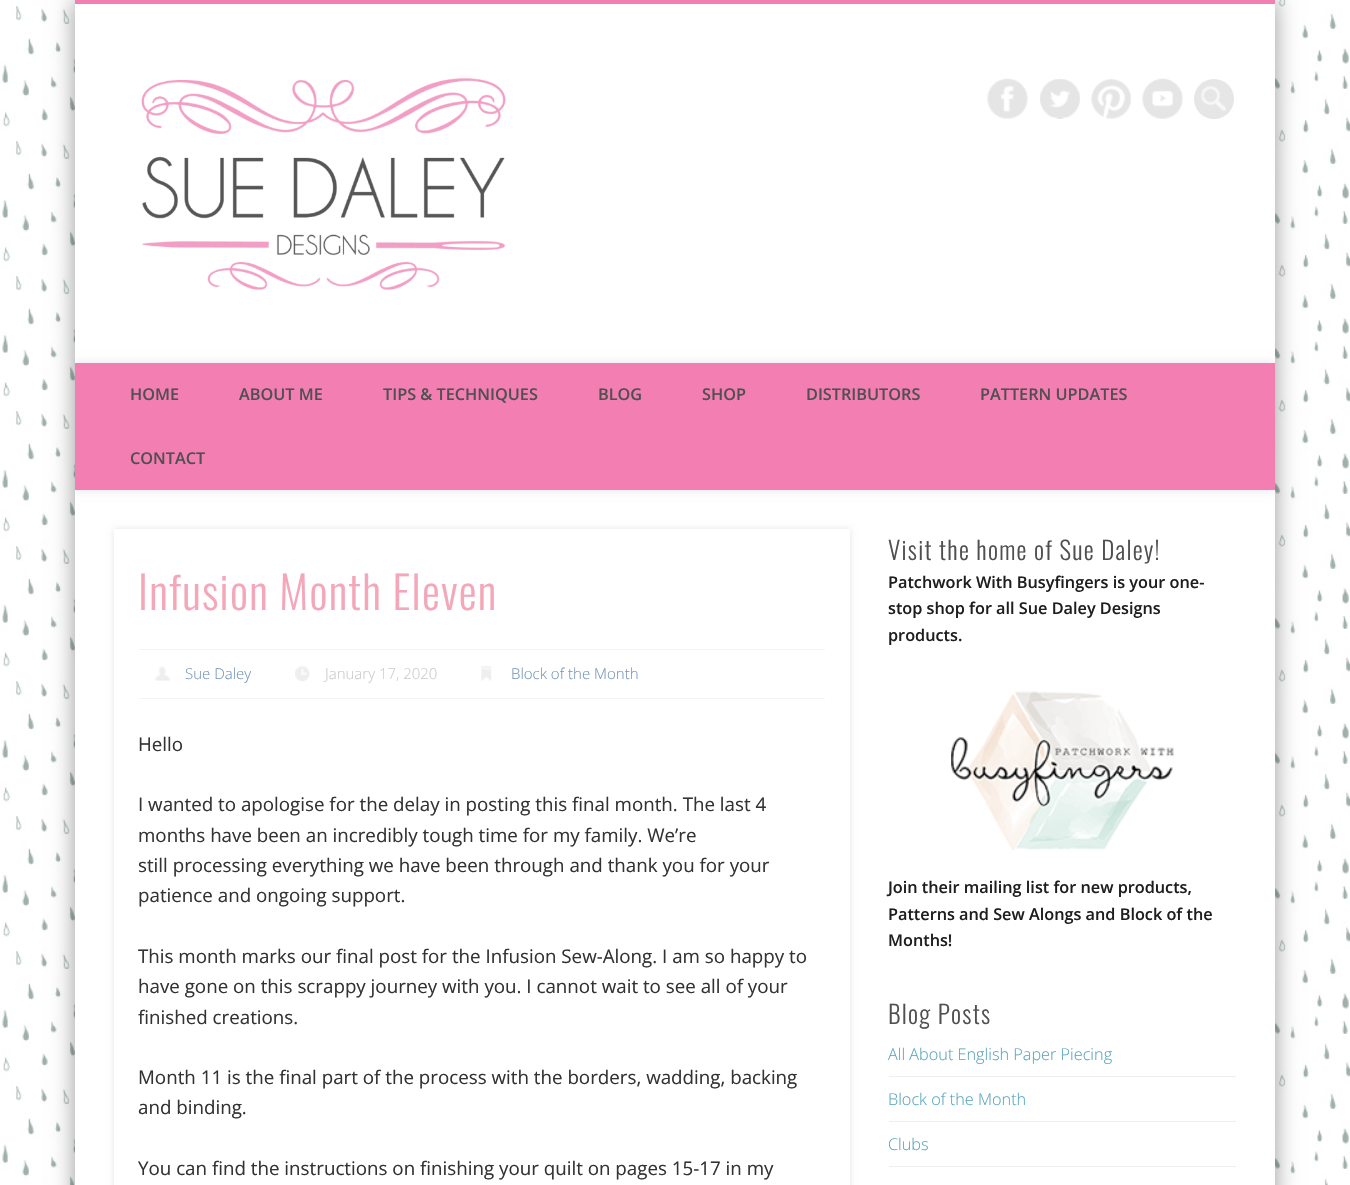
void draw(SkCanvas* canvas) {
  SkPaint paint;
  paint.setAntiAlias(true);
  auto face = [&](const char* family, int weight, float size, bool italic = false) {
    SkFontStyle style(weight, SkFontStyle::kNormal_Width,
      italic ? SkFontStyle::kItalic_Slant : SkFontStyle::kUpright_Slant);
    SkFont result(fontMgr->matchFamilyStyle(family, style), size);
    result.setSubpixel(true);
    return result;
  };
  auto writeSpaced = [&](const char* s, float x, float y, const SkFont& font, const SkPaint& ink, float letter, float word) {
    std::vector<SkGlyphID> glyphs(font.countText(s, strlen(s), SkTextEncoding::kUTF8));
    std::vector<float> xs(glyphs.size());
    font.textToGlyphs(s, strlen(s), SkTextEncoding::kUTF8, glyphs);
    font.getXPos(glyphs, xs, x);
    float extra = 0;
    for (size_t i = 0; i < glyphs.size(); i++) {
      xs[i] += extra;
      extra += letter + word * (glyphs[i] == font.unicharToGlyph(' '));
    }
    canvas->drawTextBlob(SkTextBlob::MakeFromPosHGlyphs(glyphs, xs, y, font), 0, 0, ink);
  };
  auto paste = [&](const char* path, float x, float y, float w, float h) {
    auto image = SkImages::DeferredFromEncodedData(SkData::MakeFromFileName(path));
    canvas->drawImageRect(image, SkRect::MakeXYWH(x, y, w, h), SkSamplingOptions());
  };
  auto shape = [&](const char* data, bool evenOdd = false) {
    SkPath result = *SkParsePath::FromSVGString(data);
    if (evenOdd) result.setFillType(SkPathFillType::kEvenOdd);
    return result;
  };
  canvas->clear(0xffffffff);
  paste("img/1.png", 0, 0, 1350, 1185);
  paint.setColor(0x66000000);
  paint.setMaskFilter(SkMaskFilter::MakeBlur(kNormal_SkBlurStyle, 11));
  canvas->drawRect(SkRect::MakeXYWH(75, 0, 1200, 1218), paint);
  paint.setMaskFilter(nullptr);
  paint.setColor(0xffffffff);
  canvas->drawRect(SkRect::MakeXYWH(75, 4, 1200, 1181), paint);
  paint.setColor(0xfff27eb2);
  canvas->drawRect(SkRect::MakeXYWH(75, 0, 1200, 4), paint);
  paste("img/2.png", 141, 78, 365, 212);
  paste("img/3.png", 987, 78, 41, 41);
  paste("img/4.png", 1040, 79, 40, 40);
  paste("img/5.png", 1091, 79, 40, 40);
  paste("img/6.png", 1142, 78, 41, 41);
  paint.setColor(0xffe6e6e6);
  canvas->drawCircle(1214, 99, 20, paint);
  paste("img/7.png", 1201, 86, 25, 25);
  canvas->save();
  canvas->clipRect(SkRect::MakeXYWH(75, 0, 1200, 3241));
  paint.setColor(0x1a000000);
  paint.setMaskFilter(SkMaskFilter::MakeBlur(kNormal_SkBlurStyle, 4.5f));
  canvas->drawRect(SkRect::MakeXYWH(75, 363, 1200, 127), paint);
  paint.setMaskFilter(nullptr);
  canvas->restore();
  paint.setColor(0xfff27eb2);
  canvas->drawRect(SkRect::MakeXYWH(75, 363, 1200, 127), paint);
  canvas->save();
  canvas->clipPath(shape("M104 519H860V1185H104ZM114 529H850V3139H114Z", true), true);
  paint.setColor(0x1a000000);
  paint.setMaskFilter(SkMaskFilter::MakeBlur(kNormal_SkBlurStyle, 3));
  canvas->drawRect(SkRect::MakeXYWH(114, 529, 736, 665), paint);
  paint.setMaskFilter(nullptr);
  canvas->restore();
  paint.setColor(0xfff4f4f4);
  canvas->drawRect(SkRect::MakeXYWH(139, 649, 686, 1), paint);
  canvas->drawRect(SkRect::MakeXYWH(139, 698, 686, 1), paint);
  paste("img/8.png", 155, 666, 15, 15);
  paste("img/9.png", 295, 666, 15, 16);
  paste("img/10.png", 481, 666, 11, 15);
  paste("img/11.png", 951, 691, 223, 160);
  {
    const struct { float x, y, w, h; SkColor color; } items[] = {
      {889, 1076, 347, 1, 0xffeeeeee},
      {889, 1121, 347, 1, 0xffeeeeee},
      {889, 1166, 347, 1, 0xffeeeeee},
    };
    for (auto [x, y, w, h, color] : items) {
      paint.setColor(color);
      canvas->drawRect(SkRect::MakeXYWH(x, y, w, h), paint);
    }
  }
  auto f0 = face("Open Sans", 600, 16.25f);
  paint.setColor(0xff514f51);
  {
    const struct { const char* s; float x, y; } items[] = {
      {"HOME", 130, 400},
      {"ABOUT ME", 239, 400},
      {"TIPS & TECHNIQUES", 383, 400},
      {"BLOG", 598, 400},
      {"SHOP", 702, 400},
      {"DISTRIBUTORS", 806, 400},
      {"PATTERN UPDATES", 980, 400},
      {"CONTACT", 130, 464},
    };
    for (auto [s, x, y] : items) {
      canvas->drawString(s, x, y, f0, paint);
    }
  }
  auto f1 = face("Oswald", 300, 45);
  paint.setColor(0xfff4a7b8);
  writeSpaced("Infusion Month Eleven", 138, 610, f1, paint, 1.25f, 0);
  auto f2 = face("Open Sans", 300, 15);
  paint.setColor(0xff7597b9);
  canvas->drawString("Sue Daley", 185, 679, f2, paint);
  paint.setColor(0xffcccccc);
  canvas->drawString("January 17, 2020", 325, 679, f2, paint);
  paint.setColor(0xff7597b9);
  canvas->drawString("Block of the Month", 511, 679, f2, paint);
  auto f3 = face("Open Sans", 400, 18.75f);
  paint.setColor(0xff333333);
  {
    const struct { const char* s; float x, y; } items[] = {
      {"Hello", 138, 751},
      {"I wanted to apologise for the delay in posting this final month. The last 4", 138, 811},
      {"months have been an incredibly tough time for my family. We’re", 138, 842},
      {"still processing everything we have been through and thank you for your", 138, 872},
      {"patience and ongoing support.", 138, 902},
      {"This month marks our final post for the Infusion Sew-Along. I am so happy to", 138, 963},
      {"have gone on this scrappy journey with you. I cannot wait to see all of your", 138, 993},
      {"finished creations.", 138, 1024},
      {"Month 11 is the final part of the process with the borders, wadding, backing", 138, 1084},
      {"and binding.", 138, 1114},
      {"You can find the instructions on finishing your quilt on pages 15-17 in my", 138, 1175},
    };
    for (auto [s, x, y] : items) {
      canvas->drawString(s, x, y, f3, paint);
    }
  }
  auto f4 = face("Oswald", 300, 25);
  paint.setColor(0xff514f51);
  writeSpaced("Visit the home of Sue Daley!", 888, 560, f4, paint, 1.25f, 0);
  paint.setColor(0xff1e1e1e);
  {
    const struct { const char* s; float x, y; } items[] = {
      {"Patchwork With Busyfingers is your one-", 888, 588},
      {"stop shop for all Sue Daley Designs", 888, 614},
      {"products.", 888, 641},
      {"Join their mailing list for new products,", 888, 893},
      {"Patterns and Sew Alongs and Block of the", 888, 920},
      {"Months!", 888, 946},
    };
    for (auto [s, x, y] : items) {
      canvas->drawString(s, x, y, f0, paint);
    }
  }
  paint.setColor(0xff514f51);
  writeSpaced("Blog Posts", 888, 1024, f4, paint, 1.25f, 0);
  auto f5 = face("Open Sans", 300, 16.25f);
  paint.setColor(0xff58a5bc);
  {
    const struct { const char* s; float x, y; } items[] = {
      {"All About English Paper Piecing", 888, 1060},
      {"Block of the Month", 888, 1105},
      {"Clubs", 888, 1150},
    };
    for (auto [s, x, y] : items) {
      canvas->drawString(s, x, y, f5, paint);
    }
  }
}
